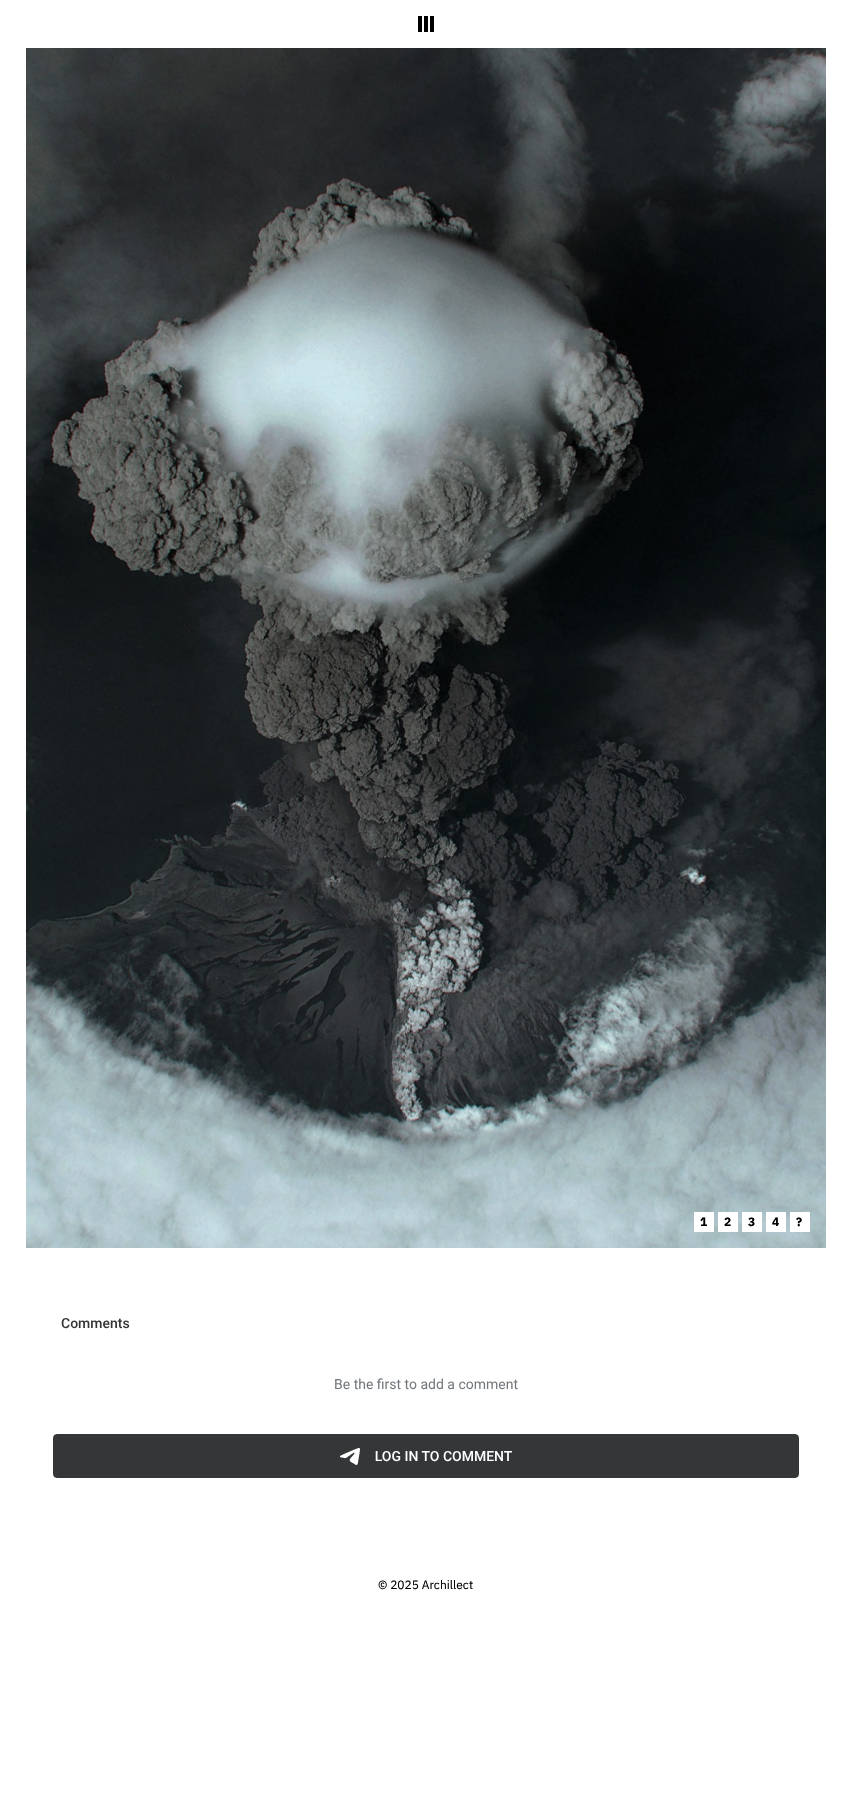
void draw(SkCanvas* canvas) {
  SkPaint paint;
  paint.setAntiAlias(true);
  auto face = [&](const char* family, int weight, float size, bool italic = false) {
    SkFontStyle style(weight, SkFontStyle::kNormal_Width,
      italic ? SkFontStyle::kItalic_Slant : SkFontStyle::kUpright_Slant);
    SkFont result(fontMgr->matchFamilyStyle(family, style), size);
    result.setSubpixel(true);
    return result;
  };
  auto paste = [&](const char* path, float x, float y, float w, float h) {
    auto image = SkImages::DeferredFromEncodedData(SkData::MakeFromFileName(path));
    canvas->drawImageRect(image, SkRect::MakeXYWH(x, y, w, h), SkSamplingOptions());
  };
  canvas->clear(0xffffffff);
  {
    const struct { float x, y, w, h; SkColor color; } items[] = {
      {418, 16, 4, 16, 0xff000000},
      {424, 16, 4, 16, 0xff000000},
      {430, 16, 4, 16, 0xff000000},
    };
    for (auto [x, y, w, h, color] : items) {
      paint.setColor(color);
      canvas->drawRect(SkRect::MakeXYWH(x, y, w, h), paint);
    }
  }
  paste("img/1.png", 26, 48, 800, 1200);
  {
    const struct { float x, y, w, h; SkColor color; } items[] = {
      {694, 1212, 20, 20, 0xffffffff},
      {718, 1212, 20, 20, 0xffffffff},
      {742, 1212, 20, 20, 0xffffffff},
      {766, 1212, 20, 20, 0xffffffff},
      {790, 1212, 20, 20, 0xffffffff},
    };
    for (auto [x, y, w, h, color] : items) {
      paint.setColor(color);
      canvas->drawRect(SkRect::MakeXYWH(x, y, w, h), paint);
    }
  }
  paste("img/2.png", 53, 1318, 746, 160);
  auto f0 = face("IBM Plex Sans", 700, 12);
  paint.setColor(0xff000000);
  {
    const struct { const char* s; float x, y; } items[] = {
      {"1", 700, 1226},
      {"2", 724, 1226},
      {"3", 748, 1226},
      {"4", 772, 1226},
      {"?", 796, 1226},
    };
    for (auto [s, x, y] : items) {
      canvas->drawString(s, x, y, f0, paint);
    }
  }
  auto f1 = face("IBM Plex Sans", 400, 12);
  canvas->drawString("© 2025 Archillect", 378, 1589, f1, paint);
}
